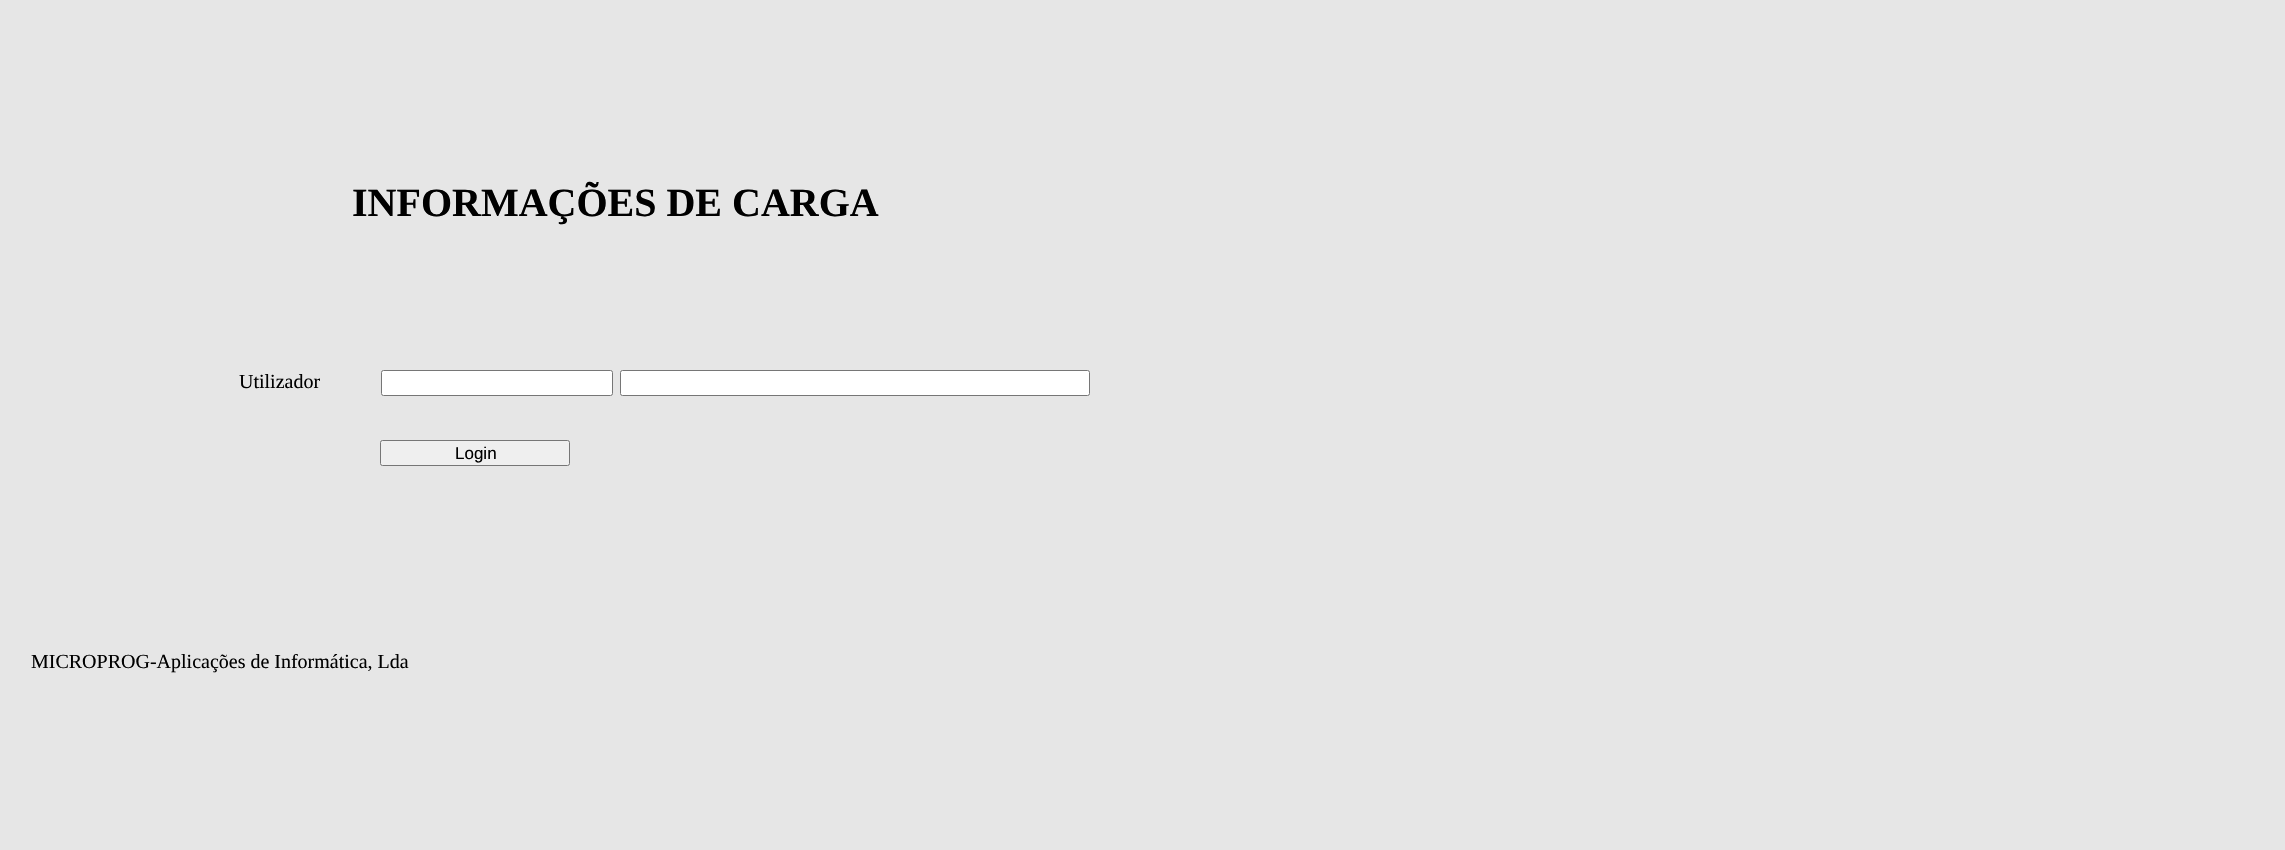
void draw(SkCanvas* canvas) {
  SkPaint paint;
  paint.setAntiAlias(true);
  auto face = [&](const char* family, int weight, float size, bool italic = false) {
    SkFontStyle style(weight, SkFontStyle::kNormal_Width,
      italic ? SkFontStyle::kItalic_Slant : SkFontStyle::kUpright_Slant);
    SkFont result(fontMgr->matchFamilyStyle(family, style), size);
    result.setSubpixel(true);
    return result;
  };
  canvas->clear(0xffe6e6e6);
  paint.setColor(0xffffffff);
  canvas->drawRoundRect(SkRect::MakeXYWH(381.5f, 370.5f, 231, 25), 2, 2, paint);
  paint.setStroke(true);
  paint.setStrokeWidth(1);
  paint.setColor(0xff767676);
  canvas->drawRoundRect(SkRect::MakeXYWH(381.5f, 370.5f, 231, 25), 2, 2, paint);
  paint.setStroke(false);
  paint.setColor(0xffffffff);
  canvas->drawRoundRect(SkRect::MakeXYWH(620.5f, 370.5f, 469, 25), 2, 2, paint);
  paint.setStroke(true);
  paint.setColor(0xff767676);
  canvas->drawRoundRect(SkRect::MakeXYWH(620.5f, 370.5f, 469, 25), 2, 2, paint);
  paint.setStroke(false);
  paint.setColor(0xffefefef);
  canvas->drawRoundRect(SkRect::MakeXYWH(380.5f, 440.5f, 189, 25), 2, 2, paint);
  paint.setStroke(true);
  paint.setColor(0xff767676);
  canvas->drawRoundRect(SkRect::MakeXYWH(380.5f, 440.5f, 189, 25), 2, 2, paint);
  auto f0 = face("Liberation Serif", 700, 40);
  paint.setStroke(false);
  paint.setColor(0xff000000);
  canvas->drawString("INFORMAÇÕES DE CARGA", 352, 216, f0, paint);
  auto f1 = face("Liberation Serif", 400, 20);
  canvas->drawString("Utilizador", 239, 388, f1, paint);
  auto f2 = face("Liberation Sans", 400, 17);
  canvas->drawString("Login", 455, 459, f2, paint);
  canvas->drawString("MICROPROG-Aplicações de Informática, Lda", 31, 668, f1, paint);
}
